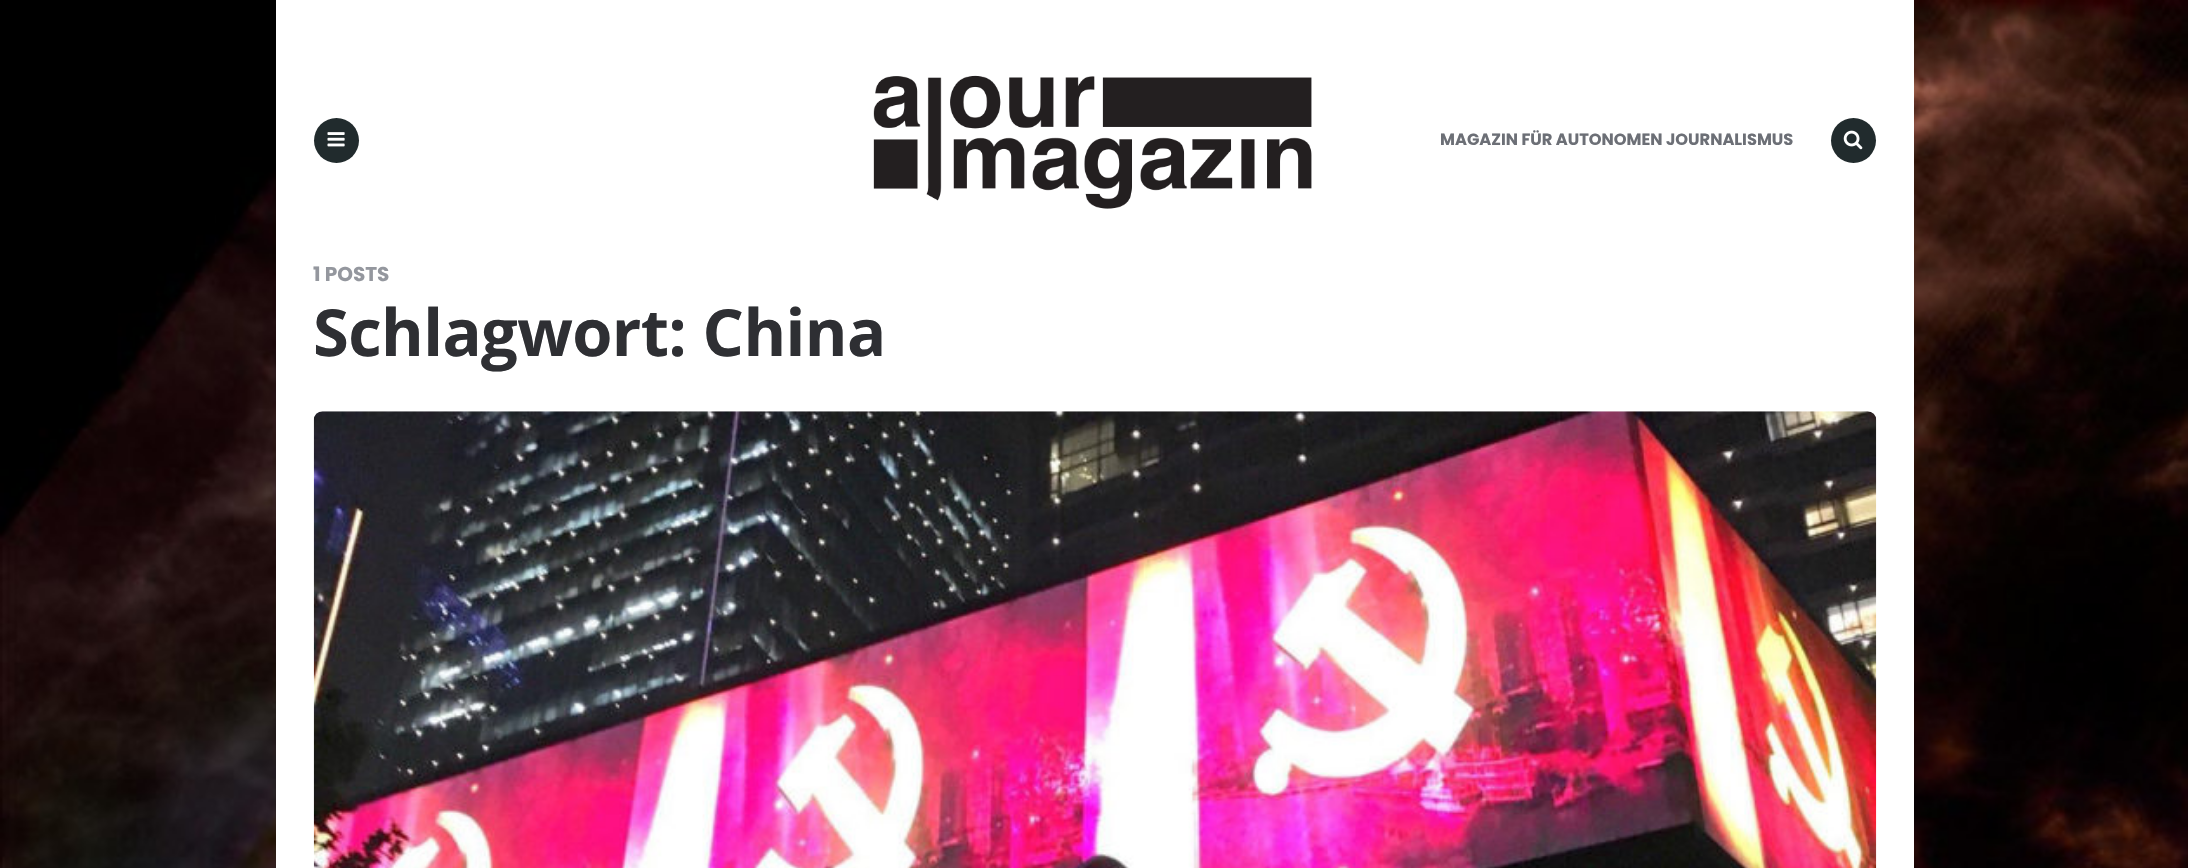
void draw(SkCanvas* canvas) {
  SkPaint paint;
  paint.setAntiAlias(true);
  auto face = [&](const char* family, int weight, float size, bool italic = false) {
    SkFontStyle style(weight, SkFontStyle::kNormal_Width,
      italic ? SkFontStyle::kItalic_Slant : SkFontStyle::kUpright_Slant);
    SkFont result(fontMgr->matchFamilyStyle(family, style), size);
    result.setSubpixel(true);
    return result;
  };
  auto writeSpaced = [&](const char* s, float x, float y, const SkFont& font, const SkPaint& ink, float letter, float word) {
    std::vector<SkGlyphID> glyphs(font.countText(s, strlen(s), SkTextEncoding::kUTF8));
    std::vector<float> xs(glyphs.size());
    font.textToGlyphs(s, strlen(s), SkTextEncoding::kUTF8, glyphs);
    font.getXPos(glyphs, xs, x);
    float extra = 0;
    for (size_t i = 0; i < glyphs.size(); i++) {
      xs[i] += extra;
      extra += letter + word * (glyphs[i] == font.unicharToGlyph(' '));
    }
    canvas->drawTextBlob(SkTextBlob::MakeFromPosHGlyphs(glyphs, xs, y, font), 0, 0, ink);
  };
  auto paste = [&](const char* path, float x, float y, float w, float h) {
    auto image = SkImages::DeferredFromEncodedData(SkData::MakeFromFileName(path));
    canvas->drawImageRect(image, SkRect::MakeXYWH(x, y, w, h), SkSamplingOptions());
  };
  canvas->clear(0xffffffff);
  paste("img/1.png", 0, 0, 2188, 868);
  paint.setColor(0xffffffff);
  canvas->drawRect(SkRect::MakeXYWH(276, 0, 1638, 868), paint);
  paint.setColor(0xff212b2d);
  canvas->drawCircle(336.5f, 140.5f, 22.5f, paint);
  paste("img/2.png", 327, 132, 18, 15);
  paste("img/3.png", 873, 75, 439, 134);
  canvas->drawCircle(1853.5f, 140.5f, 22.5f, paint);
  paste("img/4.png", 1843, 130, 20, 20);
  paste("img/5.png", 313, 411, 1564, 457);
  auto f0 = face("Poppins", 700, 16.25f);
  paint.setColor(0xff6c6f76);
  canvas->drawString("MAGAZIN FÜR AUTONOMEN JOURNALISMUS", 1440, 145, f0, paint);
  auto f1 = face("Poppins", 700, 20);
  paint.setColor(0xff94979e);
  canvas->drawString("1 POSTS", 313, 281, f1, paint);
  auto f2 = face("Open Sans", 700, 65);
  paint.setColor(0xff2e2f33);
  writeSpaced("Schlagwort: China", 313, 356, f2, paint, -0.6f, 0);
}
